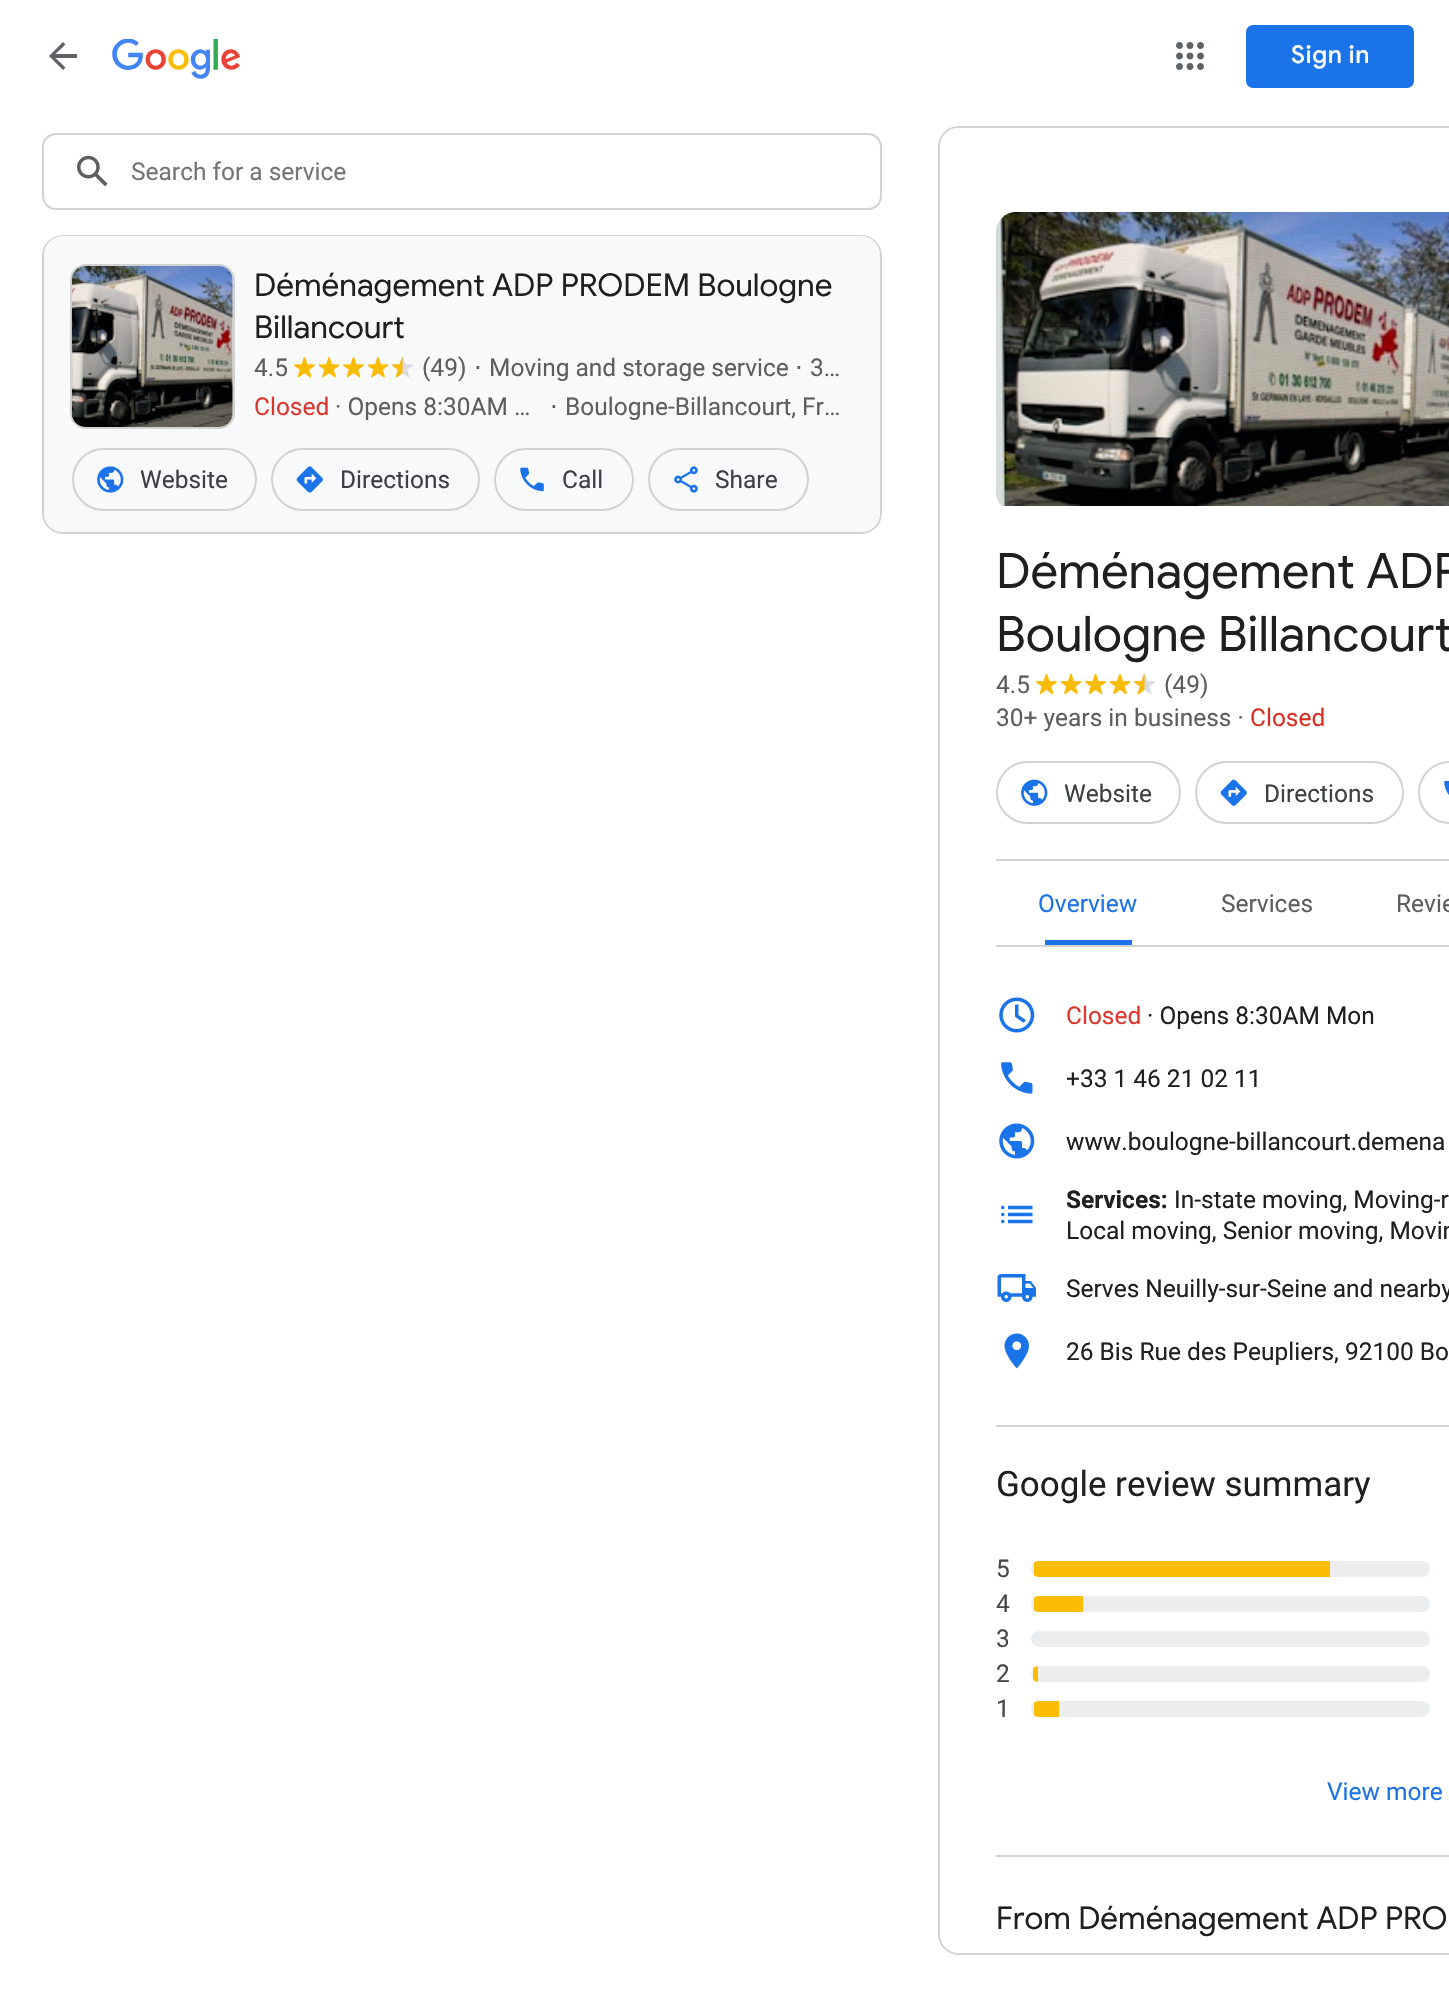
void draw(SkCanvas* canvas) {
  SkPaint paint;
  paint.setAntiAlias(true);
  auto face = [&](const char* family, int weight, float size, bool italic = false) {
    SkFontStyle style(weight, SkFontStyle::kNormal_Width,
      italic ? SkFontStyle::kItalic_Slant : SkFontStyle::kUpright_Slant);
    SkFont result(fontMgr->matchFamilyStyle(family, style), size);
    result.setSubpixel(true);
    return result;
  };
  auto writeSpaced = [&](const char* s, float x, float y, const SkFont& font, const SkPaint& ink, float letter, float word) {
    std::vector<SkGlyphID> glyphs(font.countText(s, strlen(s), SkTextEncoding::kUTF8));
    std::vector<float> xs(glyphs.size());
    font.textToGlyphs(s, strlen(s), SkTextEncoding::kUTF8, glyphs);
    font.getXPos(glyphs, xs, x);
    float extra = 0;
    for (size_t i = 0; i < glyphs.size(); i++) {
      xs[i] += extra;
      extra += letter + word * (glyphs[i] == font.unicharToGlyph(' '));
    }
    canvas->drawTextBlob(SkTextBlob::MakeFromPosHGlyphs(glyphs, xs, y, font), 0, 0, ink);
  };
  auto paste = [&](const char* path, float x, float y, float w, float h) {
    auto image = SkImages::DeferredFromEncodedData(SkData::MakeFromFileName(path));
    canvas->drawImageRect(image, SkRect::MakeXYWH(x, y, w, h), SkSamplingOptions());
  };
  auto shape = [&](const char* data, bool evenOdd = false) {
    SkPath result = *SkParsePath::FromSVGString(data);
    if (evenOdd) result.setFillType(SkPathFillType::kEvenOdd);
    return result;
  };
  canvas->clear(0xffffffff);
  paint.setColor(0xff5f6368);
  canvas->drawPath(shape("M77 54H55.5L65.5 44.5L63 42L49 56L63 70L65.5 67.5L55.5 58H77Z"), paint);
  paste("img/1.png", 112, 39, 128, 40);
  paste("img/2.png", 1176, 42, 28, 28);
  paint.setColor(0xff1a73e8);
  canvas->drawRoundRect(SkRect::MakeXYWH(1246, 25, 168, 63), 7, 7, paint);
  paint.setStroke(true);
  paint.setStrokeWidth(2);
  paint.setColor(0xffd2d2d2);
  canvas->drawRoundRect(SkRect::MakeXYWH(43, 134, 838, 75), 13, 13, paint);
  paste("img/3.png", 77, 155, 31, 32);
  canvas->drawRoundRect(SkRect::MakeXYWH(43, 236, 838, 297), 20, 20, paint);
  paint.setStroke(false);
  paint.setColor(0xfff8f9fa);
  canvas->drawRoundRect(SkRect::MakeXYWH(44, 236, 836, 296), 19, 19, paint);
  paint.setStroke(true);
  paint.setColor(0xffd2d2d2);
  canvas->drawRoundRect(SkRect::MakeXYWH(71, 265, 163, 163), 15, 15, paint);
  paste("img/4.png", 71, 266, 162, 161);
  paste("img/5.png", 294, 357, 21, 21);
  paste("img/6.png", 319, 357, 21, 21);
  paste("img/5.png", 343, 357, 21, 21);
  paste("img/6.png", 368, 357, 21, 21);
  paste("img/7.png", 392, 357, 21, 21);
  canvas->drawRoundRect(SkRect::MakeXYWH(73, 449, 183, 61), 30.5f, 30.5f, paint);
  paste("img/8.png", 97, 466, 27, 27);
  canvas->drawRoundRect(SkRect::MakeXYWH(272, 449, 207, 61), 30.5f, 30.5f, paint);
  paste("img/9.png", 296, 466, 27, 27);
  canvas->drawRoundRect(SkRect::MakeXYWH(495, 449, 138, 61), 30.5f, 30.5f, paint);
  paste("img/10.png", 520, 467, 24, 25);
  canvas->drawRoundRect(SkRect::MakeXYWH(649, 449, 159, 61), 30.5f, 30.5f, paint);
  paste("img/11.png", 674, 466, 24, 27);
  canvas->drawRoundRect(SkRect::MakeXYWH(939, 127, 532, 1827), 20, 20, paint);
  paint.setStroke(false);
  paint.setColor(0xffffffff);
  canvas->drawPath(shape("M959 128H1449V1953H959C948.5 1953 940 1944.5 940 1934V147C940 136.5 948.5 128 959 128Z"), paint);
  paste("img/12.png", 996, 212, 453, 294);
  paste("img/13.png", 1036, 674, 21, 21);
  paste("img/14.png", 1061, 674, 21, 20);
  paste("img/13.png", 1085, 674, 21, 21);
  paste("img/14.png", 1110, 674, 21, 20);
  paste("img/15.png", 1134, 674, 21, 20);
  paint.setStroke(true);
  paint.setColor(0xffd2d2d2);
  canvas->drawRoundRect(SkRect::MakeXYWH(997, 762, 183, 61), 30.5f, 30.5f, paint);
  paste("img/16.png", 1021, 779, 27, 27);
  canvas->drawRoundRect(SkRect::MakeXYWH(1196, 762, 207, 61), 30.5f, 30.5f, paint);
  paste("img/17.png", 1220, 779, 27, 27);
  canvas->drawRoundRect(SkRect::MakeXYWH(1419, 762, 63, 61), 30.5f, 30.5f, paint);
  paste("img/18.png", 1444, 780, 5, 15);
  paint.setStroke(false);
  {
    const struct { float x, y, w, h; SkColor color; } items[] = {
      {996, 859, 453, 2, 0xffd2d2d2},
      {996, 945, 453, 2, 0xffd2d2d2},
      {1045, 940, 87, 5, 0xff1a73e8},
      {996, 1425, 453, 2, 0xffd2d2d2},
    };
    for (auto [x, y, w, h, color] : items) {
      paint.setColor(color);
      canvas->drawRect(SkRect::MakeXYWH(x, y, w, h), paint);
    }
  }
  paste("img/19.png", 999, 997, 36, 36);
  paste("img/20.png", 1001, 1062, 32, 32);
  paste("img/21.png", 999, 1123, 36, 36);
  paste("img/22.png", 1001, 1205, 32, 19);
  paste("img/23.png", 997, 1274, 39, 28);
  paste("img/24.png", 1004, 1333, 25, 36);
  canvas->drawRect(SkRect::MakeXYWH(996, 1855, 453, 2), paint);
  paint.setColor(0xffecedee);
  canvas->drawRoundRect(SkRect::MakeXYWH(1031, 1561, 399, 16), 8, 8, paint);
  canvas->save();
  canvas->clipPath(shape("M1039 1561H1422C1426.5 1561 1430 1564.5 1430 1569C1430 1573.5 1426.5 1577 1422 1577H1039C1034.5 1577 1031 1573.5 1031 1569C1031 1564.5 1034.5 1561 1039 1561Z"), true);
  paint.setColor(0xfffbbc04);
  canvas->drawRect(SkRect::MakeXYWH(1034, 1561, 296, 9), paint);
  canvas->drawRect(SkRect::MakeXYWH(1034, 1570, 296, 7), paint);
  canvas->restore();
  paint.setColor(0xffecedee);
  canvas->drawRoundRect(SkRect::MakeXYWH(1031, 1596, 399, 16), 8, 8, paint);
  canvas->save();
  canvas->clipPath(shape("M1039 1596H1422C1426.5 1596 1430 1599.5 1430 1604C1430 1608.5 1426.5 1612 1422 1612H1039C1034.5 1612 1031 1608.5 1031 1604C1031 1599.5 1034.5 1596 1039 1596Z"), true);
  paint.setColor(0xfffbbc04);
  canvas->drawRect(SkRect::MakeXYWH(1034, 1596, 49, 9), paint);
  canvas->drawRect(SkRect::MakeXYWH(1034, 1605, 49, 7), paint);
  canvas->restore();
  paint.setColor(0xffecedee);
  canvas->drawRoundRect(SkRect::MakeXYWH(1031, 1631, 399, 16), 8, 8, paint);
  canvas->drawRoundRect(SkRect::MakeXYWH(1031, 1666, 399, 16), 8, 8, paint);
  canvas->save();
  canvas->clipPath(shape("M1039 1666H1422C1426.5 1666 1430 1669.5 1430 1674C1430 1678.5 1426.5 1682 1422 1682H1039C1034.5 1682 1031 1678.5 1031 1674C1031 1669.5 1034.5 1666 1039 1666Z"), true);
  paint.setColor(0xfffbbc04);
  canvas->drawRect(SkRect::MakeXYWH(1033, 1666, 5, 9), paint);
  canvas->drawRect(SkRect::MakeXYWH(1033, 1675, 5, 7), paint);
  canvas->restore();
  paint.setColor(0xffecedee);
  canvas->drawRoundRect(SkRect::MakeXYWH(1031, 1701, 399, 16), 8, 8, paint);
  canvas->save();
  canvas->clipPath(shape("M1039 1701H1422C1426.5 1701 1430 1704.5 1430 1709C1430 1713.5 1426.5 1717 1422 1717H1039C1034.5 1717 1031 1713.5 1031 1709C1031 1704.5 1034.5 1701 1039 1701Z"), true);
  paint.setColor(0xfffbbc04);
  canvas->drawRect(SkRect::MakeXYWH(1034, 1701, 25, 9), paint);
  canvas->drawRect(SkRect::MakeXYWH(1034, 1710, 25, 7), paint);
  canvas->restore();
  auto f0 = face("Google Sans", 500, 24.5f);
  paint.setColor(0xffffffff);
  writeSpaced("Sign in", 1291, 63, f0, paint, 0.5f, 0);
  auto f1 = face("Roboto", 400, 24.5f);
  paint.setColor(0xff757575);
  canvas->drawString("Search for a service", 131, 180, f1, paint);
  auto f2 = face("Google Sans", 400, 31.5f);
  paint.setColor(0xff1f1f1f);
  canvas->drawString("Déménagement ADP PRODEM Boulogne", 254, 296, f2, paint);
  canvas->drawString("Billancourt", 254, 338, f2, paint);
  paint.setColor(0xff5e5e5e);
  canvas->drawString("4.5", 254, 376, f1, paint);
  canvas->drawString("(49)", 422, 376, f1, paint);
  auto f3 = face("DejaVu Sans", 400, 24.5f);
  canvas->drawString("⋅", 474, 376, f3, paint);
  canvas->drawString("Moving and storage service", 489, 376, f1, paint);
  canvas->drawString("⋅", 795, 376, f3, paint);
  canvas->drawString("3…", 810, 376, f1, paint);
  paint.setColor(0xffdc362e);
  canvas->drawString("Closed", 254, 415, f1, paint);
  paint.setColor(0xff5e5e5e);
  canvas->drawString("· Opens 8:30 AM …", 335, 415, f1, paint);
  canvas->drawString("⋅", 550, 415, f3, paint);
  canvas->drawString("Boulogne-Billancourt, Fr…", 565, 415, f1, paint);
  paint.setColor(0xff3c4043);
  {
    const struct { const char* s; float x, y; } items[] = {
      {"Website", 140, 488},
      {"Directions", 340, 488},
      {"Call", 562, 488},
      {"Share", 715, 488},
    };
    for (auto [s, x, y] : items) {
      canvas->drawString(s, x, y, f1, paint);
    }
  }
  auto f4 = face("Google Sans", 400, 49);
  paint.setColor(0xff1f1f1f);
  canvas->drawString("Déménagement ADP", 996, 588, f4, paint);
  canvas->drawString("Boulogne Billancourt", 996, 651, f4, paint);
  paint.setColor(0xff5e5e5e);
  {
    const struct { const char* s; float x, y; } items[] = {
      {"4.5", 996, 693},
      {"(49)", 1164, 693},
      {"30+ years in business ·", 996, 726},
    };
    for (auto [s, x, y] : items) {
      canvas->drawString(s, x, y, f1, paint);
    }
  }
  paint.setColor(0xffd93025);
  canvas->drawString("Closed", 1250, 726, f1, paint);
  paint.setColor(0xff3c4043);
  canvas->drawString("Website", 1064, 802, f1, paint);
  canvas->drawString("Directions", 1264, 802, f1, paint);
  paint.setColor(0xff1a73e8);
  canvas->drawString("Overview", 1038, 912, f1, paint);
  paint.setColor(0xff5e5e5e);
  canvas->drawString("Services", 1221, 912, f1, paint);
  canvas->drawString("Revie", 1396, 912, f1, paint);
  paint.setColor(0xffdc362e);
  canvas->drawString("Closed", 1066, 1024, f1, paint);
  paint.setColor(0xff1f1f1f);
  {
    const struct { const char* s; float x, y; } items[] = {
      {"· Opens 8:30 AM Mon", 1147, 1024},
      {"+33 1 46 21 02 11", 1066, 1087},
      {"www.boulogne-billancourt.demena", 1066, 1150},
    };
    for (auto [s, x, y] : items) {
      canvas->drawString(s, x, y, f1, paint);
    }
  }
  auto f5 = face("Roboto", 700, 24.5f);
  canvas->drawString("Services:", 1066, 1208, f5, paint);
  {
    const struct { const char* s; float x, y; } items[] = {
      {"In-state moving, Moving-r", 1174, 1208},
      {"Local moving, Senior moving, Movin", 1066, 1239},
      {"Serves Neuilly-sur-Seine and nearby", 1066, 1297},
      {"26 Bis Rue des Peupliers, 92100 Bo", 1066, 1360},
    };
    for (auto [s, x, y] : items) {
      canvas->drawString(s, x, y, f1, paint);
    }
  }
  auto f6 = face("Roboto", 400, 35);
  canvas->drawString("Google review summary", 996, 1496, f6, paint);
  paint.setColor(0xff474747);
  {
    const struct { const char* s; float x, y; } items[] = {
      {"5", 996, 1577},
      {"4", 996, 1612},
      {"3", 996, 1647},
      {"2", 996, 1682},
      {"1", 996, 1717},
    };
    for (auto [s, x, y] : items) {
      canvas->drawString(s, x, y, f1, paint);
    }
  }
  paint.setColor(0xff1a73e8);
  canvas->drawString("View more", 1327, 1800, f1, paint);
  paint.setColor(0xff1f1f1f);
  canvas->drawString("From Déménagement ADP PRO", 996, 1929, f2, paint);
}
